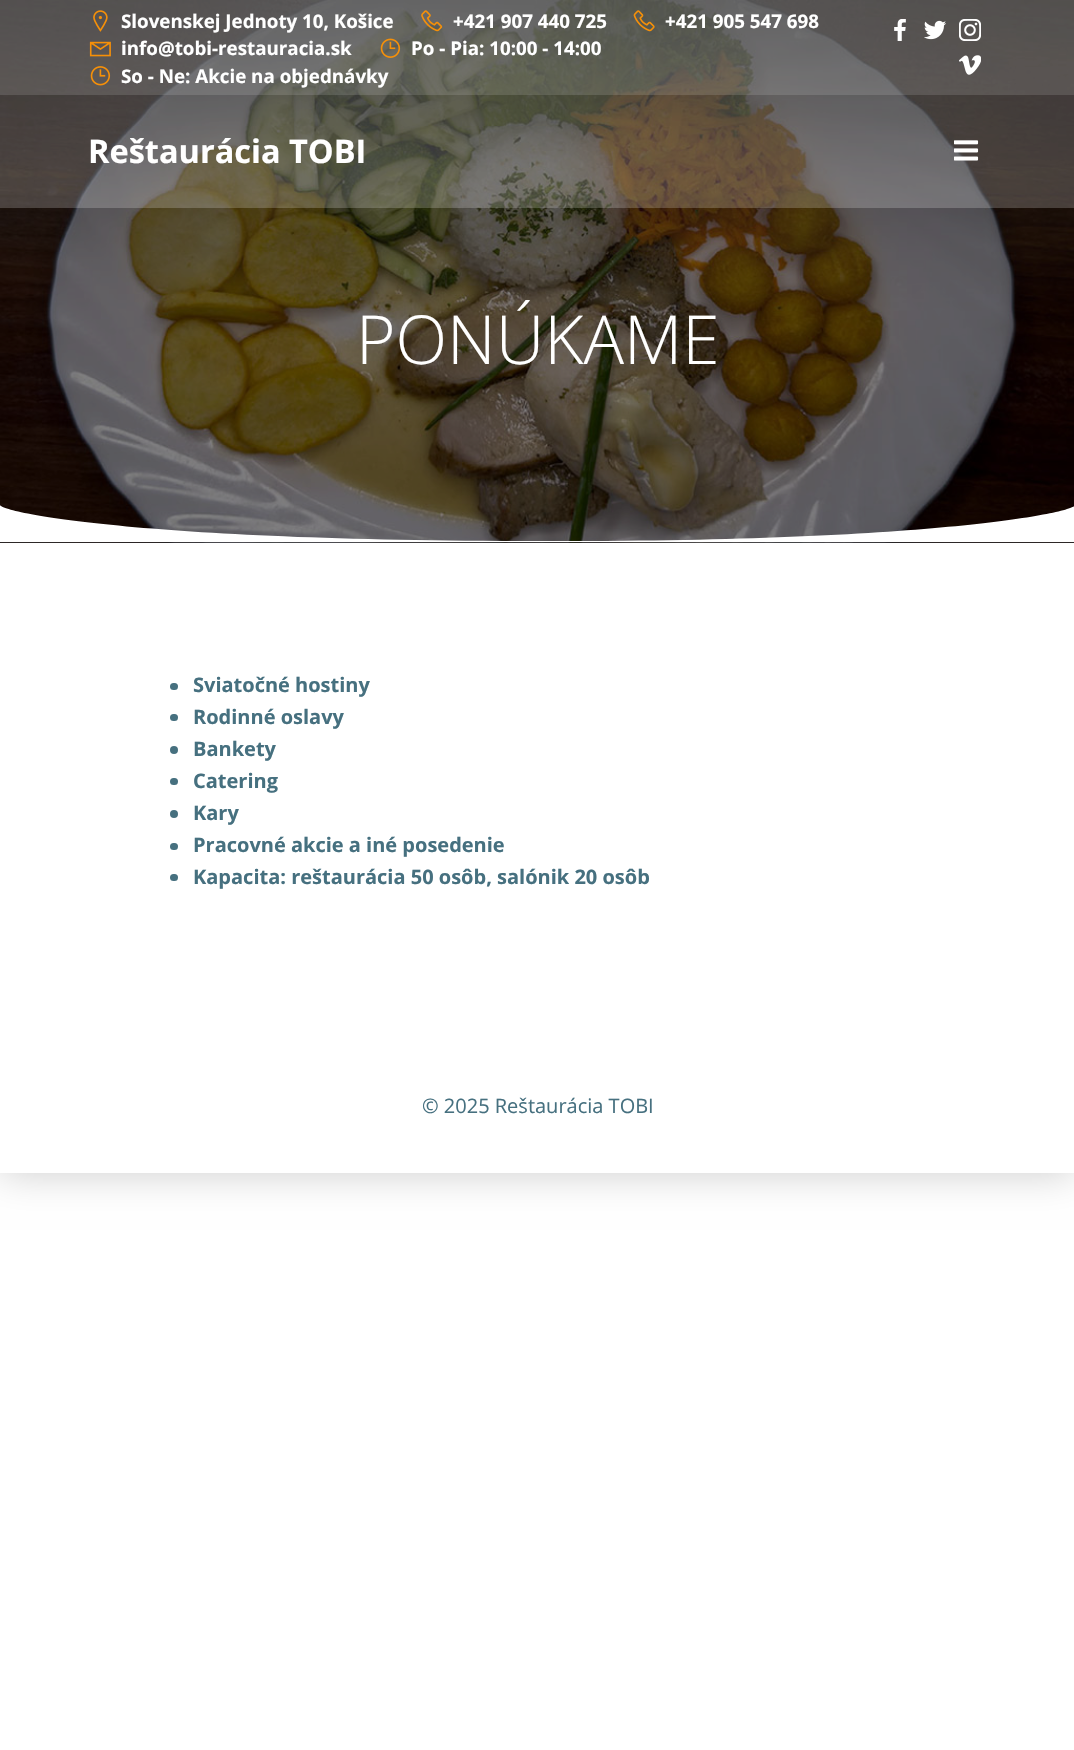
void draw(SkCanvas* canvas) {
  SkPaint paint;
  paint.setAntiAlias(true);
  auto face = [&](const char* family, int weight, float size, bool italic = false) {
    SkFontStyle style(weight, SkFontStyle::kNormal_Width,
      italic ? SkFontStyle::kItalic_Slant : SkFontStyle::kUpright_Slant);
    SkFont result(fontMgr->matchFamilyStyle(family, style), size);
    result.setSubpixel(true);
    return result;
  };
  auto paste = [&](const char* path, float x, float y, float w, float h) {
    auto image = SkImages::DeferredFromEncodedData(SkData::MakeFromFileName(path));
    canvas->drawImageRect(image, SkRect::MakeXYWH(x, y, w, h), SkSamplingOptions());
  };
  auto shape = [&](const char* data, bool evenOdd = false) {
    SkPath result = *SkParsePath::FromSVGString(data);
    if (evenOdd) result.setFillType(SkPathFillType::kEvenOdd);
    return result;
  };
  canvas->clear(0xffffffff);
  canvas->save();
  canvas->clipPath(shape("M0 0H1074V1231H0ZM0 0H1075V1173H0Z", true), true);
  paint.setColor(0x33000000);
  paint.setMaskFilter(SkMaskFilter::MakeBlur(kNormal_SkBlurStyle, 19));
  canvas->drawRect(SkRect::MakeXYWH(0, 0, 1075, 1173), paint);
  paint.setMaskFilter(nullptr);
  canvas->restore();
  paint.setColor(0xff1b1e1f);
  canvas->drawRect(SkRect::MakeXYWH(0, 542, 1074, 1), paint);
  paste("img/13.png", 0, 542, 1074, 1);
  paste("img/14.png", 0, 542, 1074, 1);
  paste("img/15.png", 0, 542, 1074, 1);
  paste("img/12.png", 0, 0, 1074, 543);
  paint.setColor(0x4dffffff);
  canvas->drawRect(SkRect::MakeXYWH(0, 0, 1074, 95), paint);
  paste("img/1.png", 93, 10, 15, 22);
  paste("img/2.png", 421, 10, 22, 22);
  paste("img/3.png", 633, 10, 22, 22);
  paste("img/4.png", 89, 41, 22, 16);
  paste("img/5.png", 380, 38, 21, 20);
  paste("img/6.png", 90, 66, 21, 20);
  paste("img/7.png", 894, 19, 12, 22);
  paste("img/8.png", 924, 20, 22, 20);
  paste("img/9.png", 959, 19, 22, 22);
  paste("img/10.png", 959, 55, 22, 20);
  paint.setColor(0x33ffffff);
  canvas->drawRect(SkRect::MakeXYWH(0, 95, 1074, 113), paint);
  paste("img/11.png", 954, 140, 25, 21);
  paint.setColor(0xffffffff);
  canvas->drawPath(shape("M538 541C136 541 1 512 0 505V542H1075V505C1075 512 939 542 538 541Z"), paint);
  paint.setColor(0xff46707f);
  canvas->drawRoundRect(SkRect::MakeXYWH(170, 683, 8, 7), 3.5f, 3.5f, paint);
  canvas->drawRoundRect(SkRect::MakeXYWH(170, 714, 8, 7), 3.5f, 3.5f, paint);
  canvas->drawCircle(174, 750, 4, paint);
  canvas->drawRoundRect(SkRect::MakeXYWH(170, 778, 8, 7), 3.5f, 3.5f, paint);
  canvas->drawCircle(174, 814, 4, paint);
  canvas->drawRoundRect(SkRect::MakeXYWH(170, 843, 8, 7), 3.5f, 3.5f, paint);
  canvas->drawRoundRect(SkRect::MakeXYWH(170, 874, 8, 7), 3.5f, 3.5f, paint);
  auto f0 = face("Open Sans", 700, 18.75f);
  paint.setColor(0xffffffff);
  {
    const struct { const char* s; float x, y; } items[] = {
      {"Slovenskej Jednoty 10, Košice", 121, 28},
      {"+421 907 440 725", 453, 28},
      {"+421 905 547 698", 665, 28},
      {"info@tobi-restauracia.sk", 121, 55},
      {"Po - Pia: 10:00 - 14:00", 411, 55},
      {"So - Ne: Akcie na objednávky", 121, 83},
    };
    for (auto [s, x, y] : items) {
      canvas->drawString(s, x, y, f0, paint);
    }
  }
  auto f1 = face("Open Sans", 700, 32.5f);
  canvas->drawString("Reštaurácia TOBI", 88, 163, f1, paint);
  auto f2 = face("Open Sans", 300, 67.5f);
  canvas->drawString("PONÚKAME", 356, 364, f2, paint);
  auto f3 = face("Open Sans", 700, 20);
  paint.setColor(0xff46707f);
  {
    const struct { const char* s; float x, y; } items[] = {
      {"Sviatočné hostiny", 193, 692},
      {"Rodinné oslavy", 193, 724},
      {"Bankety", 193, 756},
      {"Catering", 193, 788},
      {"Kary", 193, 820},
      {"Pracovné akcie a iné posedenie", 193, 852},
      {"Kapacita: reštaurácia 50 osôb, salónik 20 osôb", 193, 884},
    };
    for (auto [s, x, y] : items) {
      canvas->drawString(s, x, y, f3, paint);
    }
  }
  auto f4 = face("Open Sans", 400, 20);
  canvas->drawString("© 2025 Reštaurácia TOBI", 422, 1113, f4, paint);
}
